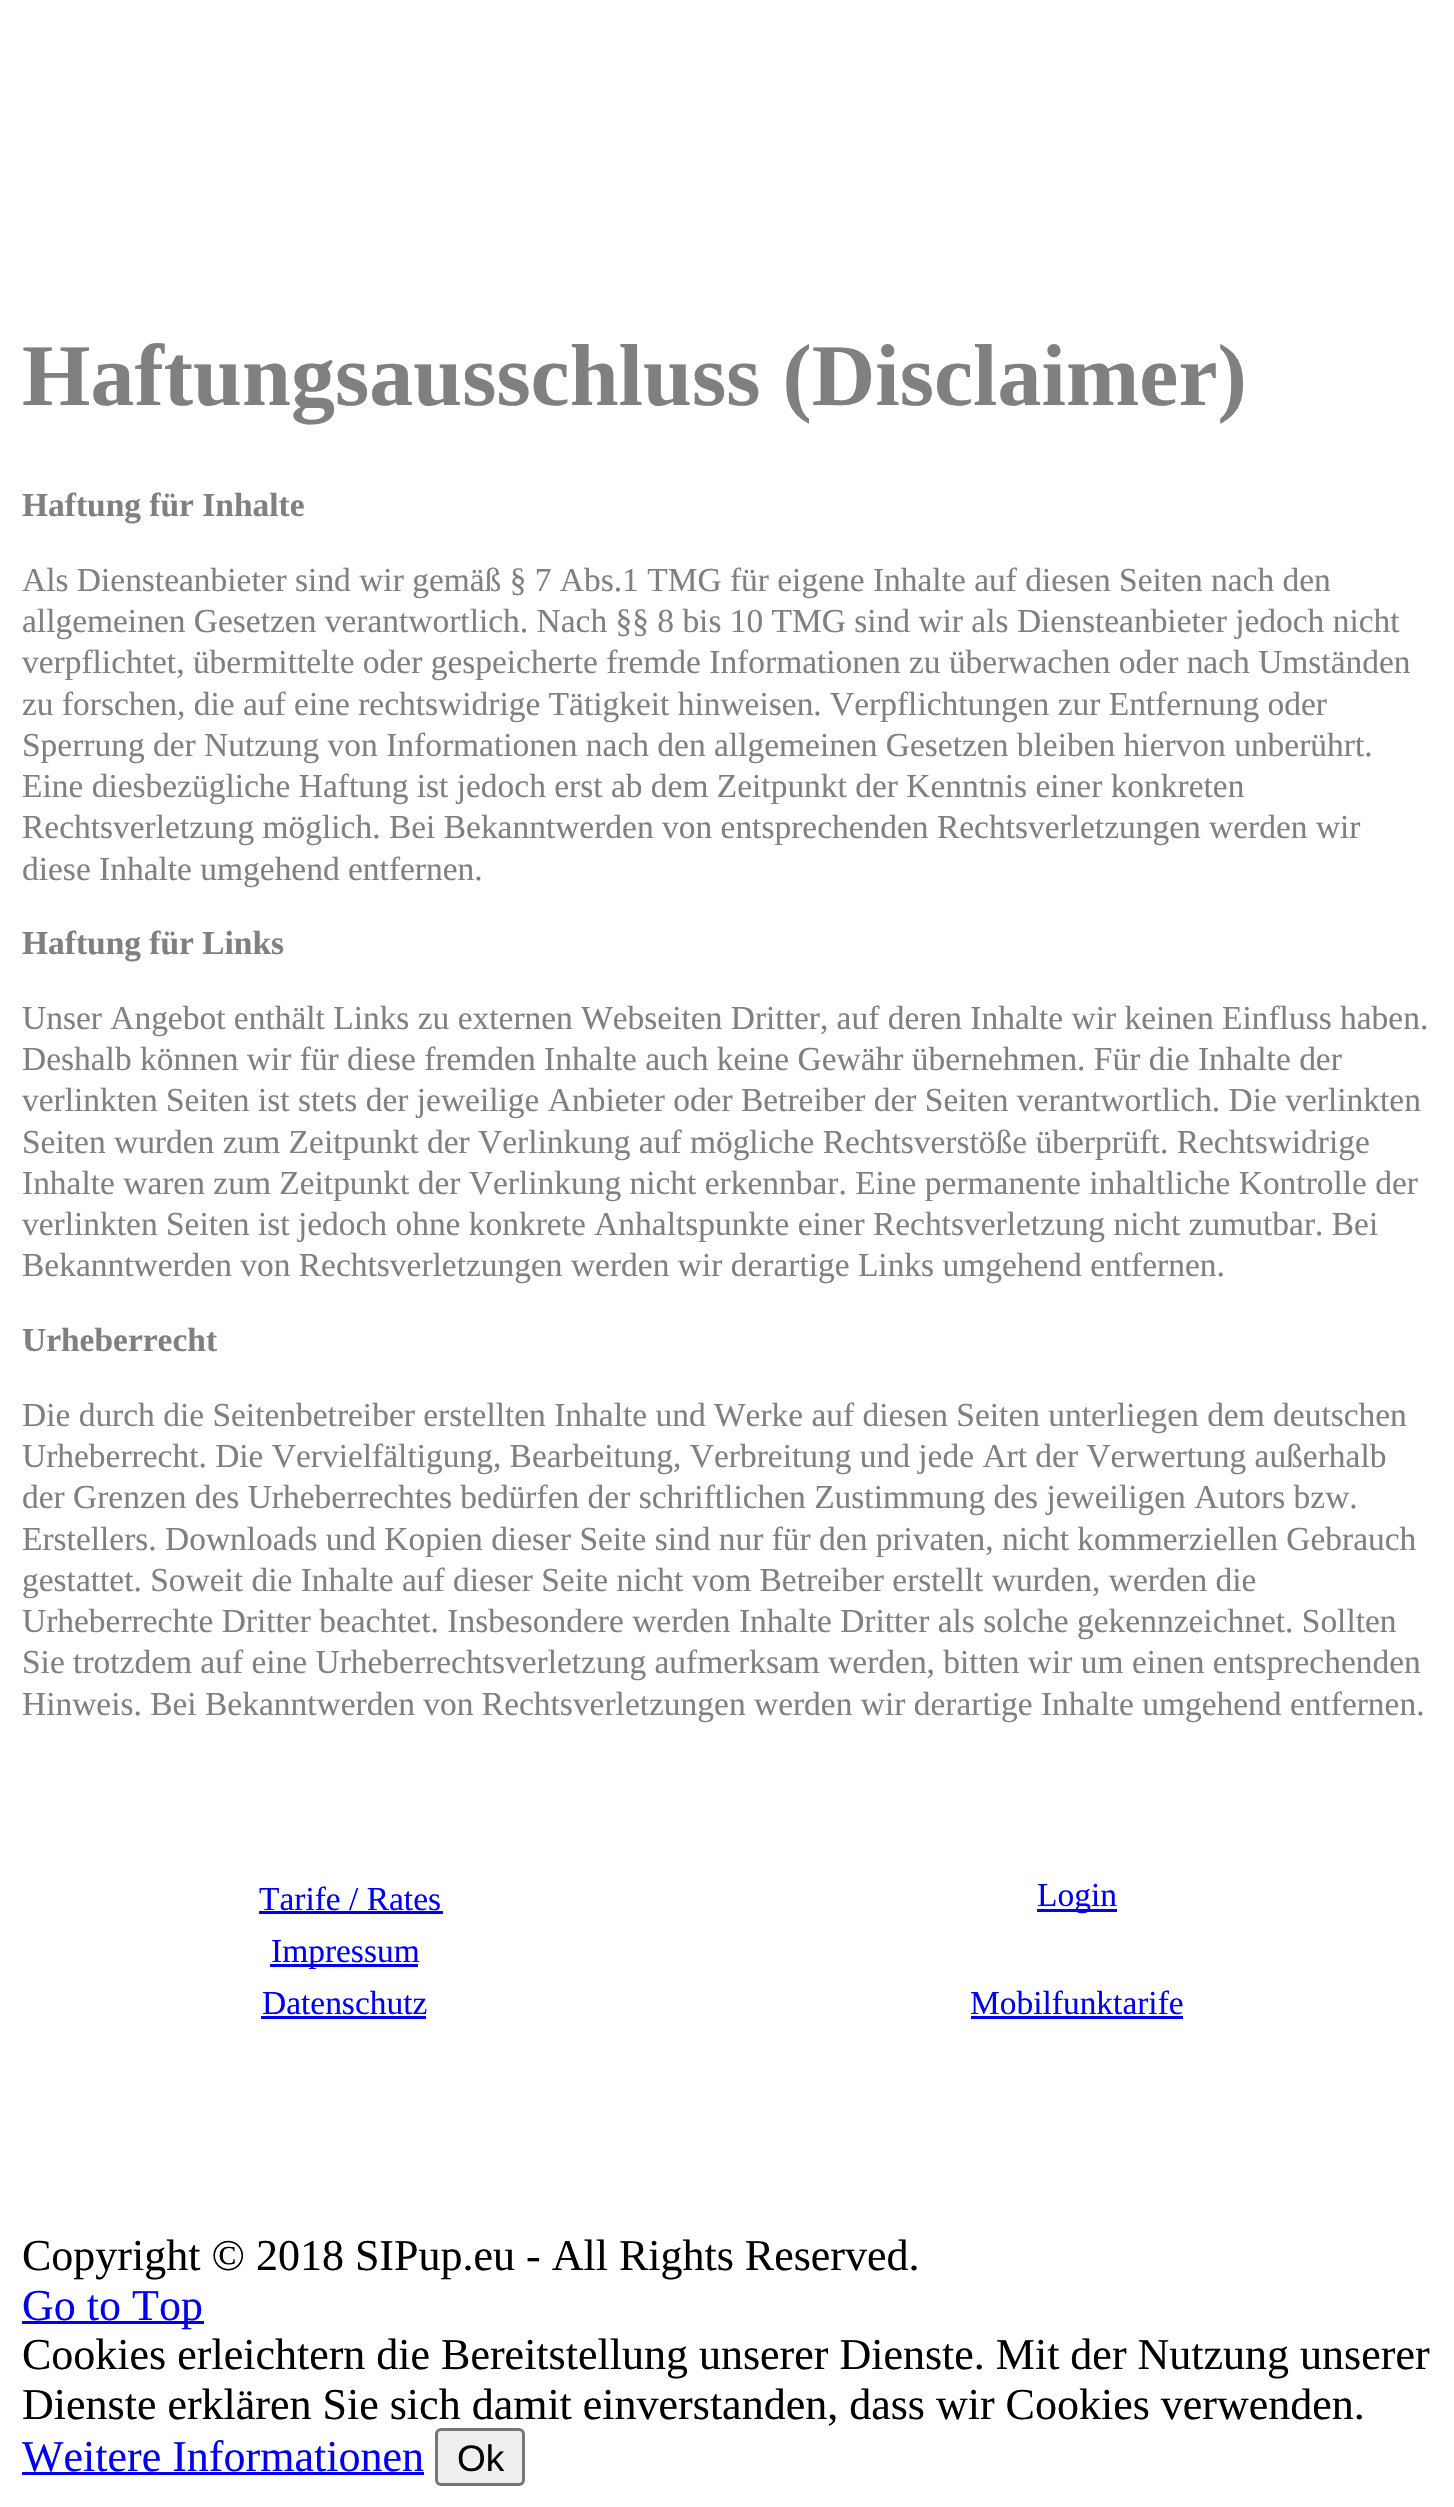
void draw(SkCanvas* canvas) {
  SkPaint paint;
  paint.setAntiAlias(true);
  auto face = [&](const char* family, int weight, float size, bool italic = false) {
    SkFontStyle style(weight, SkFontStyle::kNormal_Width,
      italic ? SkFontStyle::kItalic_Slant : SkFontStyle::kUpright_Slant);
    SkFont result(fontMgr->matchFamilyStyle(family, style), size);
    result.setSubpixel(true);
    return result;
  };
  canvas->clear(0xffffffff);
  {
    const struct { float x, y, w, h; SkColor color; } items[] = {
      {259, 1911, 184, 3, 0xff0000ee},
      {1037, 1909, 80, 3, 0xff0000ee},
      {270, 1964, 148, 3, 0xff0000ee},
      {261, 2016, 165, 3, 0xff0000ee},
      {971, 2016, 212, 3, 0xff0000ee},
      {22, 2321, 182, 3, 0xff0000ee},
      {22, 2472, 402, 3, 0xff0000ee},
    };
    for (auto [x, y, w, h, color] : items) {
      paint.setColor(color);
      canvas->drawRect(SkRect::MakeXYWH(x, y, w, h), paint);
    }
  }
  paint.setColor(0xffefefef);
  canvas->drawRoundRect(SkRect::MakeXYWH(436.5f, 2429.5f, 87, 55), 4.5f, 4.5f, paint);
  paint.setStroke(true);
  paint.setStrokeWidth(3);
  paint.setColor(0xff767676);
  canvas->drawRoundRect(SkRect::MakeXYWH(436.5f, 2429.5f, 87, 55), 4.5f, 4.5f, paint);
  auto f0 = face("Liberation Serif", 700, 88);
  paint.setStroke(false);
  paint.setColor(0xff808080);
  canvas->drawString("Haftungsausschluss (Disclaimer)", 22, 405, f0, paint);
  auto f1 = face("Liberation Serif", 700, 33.45f);
  canvas->drawString("Haftung für Inhalte", 22, 516, f1, paint);
  auto f2 = face("Liberation Serif", 400, 33.45f);
  {
    const struct { const char* s; float x, y; } items[] = {
      {"Als Diensteanbieter sind wir gemäß § 7 Abs.1 TMG für eigene Inhalte auf diesen Seiten nach den", 22, 591},
      {"allgemeinen Gesetzen verantwortlich. Nach §§ 8 bis 10 TMG sind wir als Diensteanbieter jedoch nicht", 22, 632},
      {"verpflichtet, übermittelte oder gespeicherte fremde Informationen zu überwachen oder nach Umständen", 22, 673},
      {"zu forschen, die auf eine rechtswidrige Tätigkeit hinweisen. Verpflichtungen zur Entfernung oder", 22, 715},
      {"Sperrung der Nutzung von Informationen nach den allgemeinen Gesetzen bleiben hiervon unberührt.", 22, 756},
      {"Eine diesbezügliche Haftung ist jedoch erst ab dem Zeitpunkt der Kenntnis einer konkreten", 22, 797},
      {"Rechtsverletzung möglich. Bei Bekanntwerden von entsprechenden Rechtsverletzungen werden wir", 22, 838},
      {"diese Inhalte umgehend entfernen.", 22, 880},
    };
    for (auto [s, x, y] : items) {
      canvas->drawString(s, x, y, f2, paint);
    }
  }
  canvas->drawString("Haftung für Links", 22, 954, f1, paint);
  {
    const struct { const char* s; float x, y; } items[] = {
      {"Unser Angebot enthält Links zu externen Webseiten Dritter, auf deren Inhalte wir keinen Einfluss haben.", 22, 1029},
      {"Deshalb können wir für diese fremden Inhalte auch keine Gewähr übernehmen. Für die Inhalte der", 22, 1070},
      {"verlinkten Seiten ist stets der jeweilige Anbieter oder Betreiber der Seiten verantwortlich. Die verlinkten", 22, 1111},
      {"Seiten wurden zum Zeitpunkt der Verlinkung auf mögliche Rechtsverstöße überprüft. Rechtswidrige", 22, 1153},
      {"Inhalte waren zum Zeitpunkt der Verlinkung nicht erkennbar. Eine permanente inhaltliche Kontrolle der", 22, 1194},
      {"verlinkten Seiten ist jedoch ohne konkrete Anhaltspunkte einer Rechtsverletzung nicht zumutbar. Bei", 22, 1235},
      {"Bekanntwerden von Rechtsverletzungen werden wir derartige Links umgehend entfernen.", 22, 1276},
    };
    for (auto [s, x, y] : items) {
      canvas->drawString(s, x, y, f2, paint);
    }
  }
  canvas->drawString("Urheberrecht", 22, 1351, f1, paint);
  {
    const struct { const char* s; float x, y; } items[] = {
      {"Die durch die Seitenbetreiber erstellten Inhalte und Werke auf diesen Seiten unterliegen dem deutschen", 22, 1426},
      {"Urheberrecht. Die Vervielfältigung, Bearbeitung, Verbreitung und jede Art der Verwertung außerhalb", 22, 1467},
      {"der Grenzen des Urheberrechtes bedürfen der schriftlichen Zustimmung des jeweiligen Autors bzw.", 22, 1508},
      {"Erstellers. Downloads und Kopien dieser Seite sind nur für den privaten, nicht kommerziellen Gebrauch", 22, 1550},
      {"gestattet. Soweit die Inhalte auf dieser Seite nicht vom Betreiber erstellt wurden, werden die", 22, 1591},
      {"Urheberrechte Dritter beachtet. Insbesondere werden Inhalte Dritter als solche gekennzeichnet. Sollten", 22, 1632},
      {"Sie trotzdem auf eine Urheberrechtsverletzung aufmerksam werden, bitten wir um einen entsprechenden", 22, 1673},
      {"Hinweis. Bei Bekanntwerden von Rechtsverletzungen werden wir derartige Inhalte umgehend entfernen.", 22, 1715},
    };
    for (auto [s, x, y] : items) {
      canvas->drawString(s, x, y, f2, paint);
    }
  }
  paint.setColor(0xff0000ee);
  {
    const struct { const char* s; float x, y; } items[] = {
      {"Tarife / Rates", 259, 1910},
      {"Login", 1037, 1906},
      {"Impressum", 271, 1962},
      {"Datenschutz", 262, 2014},
      {"Mobilfunktarife", 970, 2014},
    };
    for (auto [s, x, y] : items) {
      canvas->drawString(s, x, y, f2, paint);
    }
  }
  auto f3 = face("Liberation Serif", 400, 44);
  paint.setColor(0xff000000);
  canvas->drawString("Copyright © 2018 SIPup.eu - All Rights Reserved.", 22, 2270, f3, paint);
  paint.setColor(0xff0000ee);
  canvas->drawString("Go to Top", 22, 2320, f3, paint);
  paint.setColor(0xff000000);
  canvas->drawString("Cookies erleichtern die Bereitstellung unserer Dienste. Mit der Nutzung unserer", 22, 2369, f3, paint);
  canvas->drawString("Dienste erklären Sie sich damit einverstanden, dass wir Cookies verwenden.", 22, 2419, f3, paint);
  paint.setColor(0xff0000ee);
  canvas->drawString("Weitere Informationen", 22, 2471, f3, paint);
  auto f4 = face("Liberation Sans", 400, 37);
  paint.setColor(0xff000000);
  canvas->drawString("Ok", 457, 2471, f4, paint);
}
